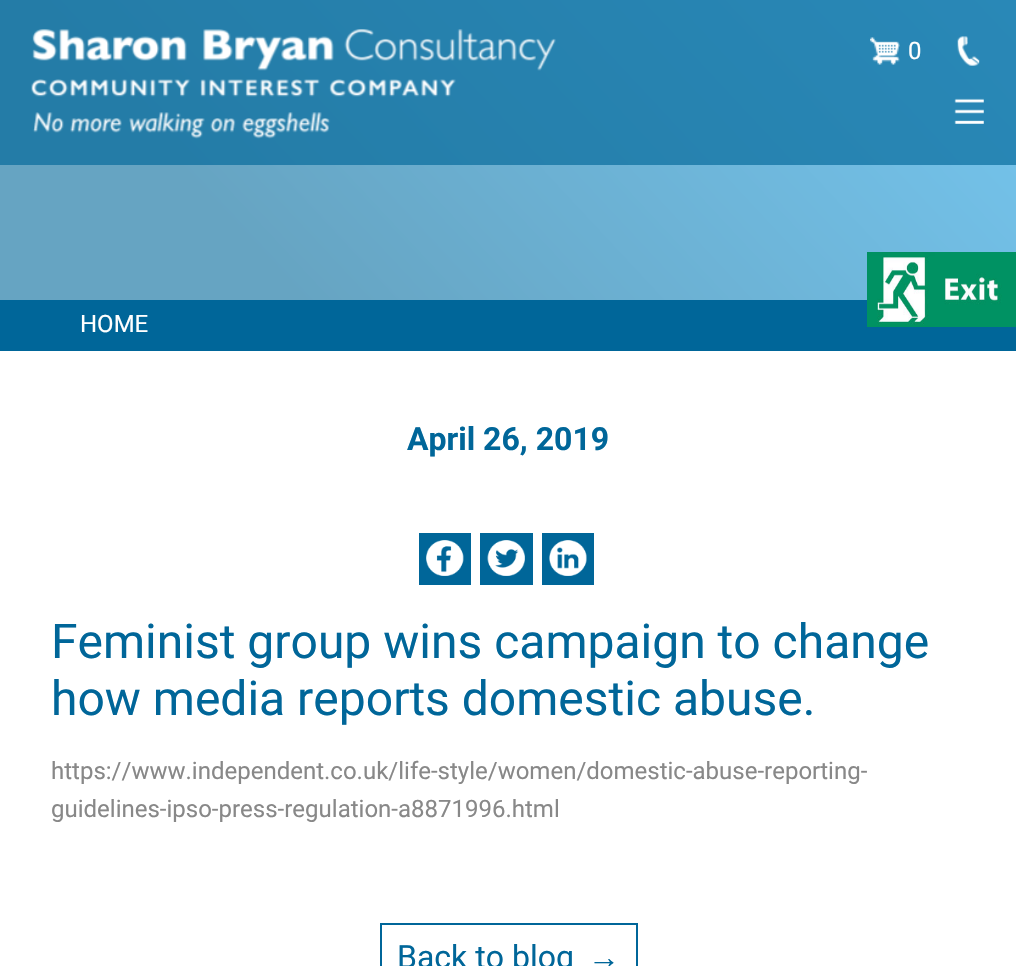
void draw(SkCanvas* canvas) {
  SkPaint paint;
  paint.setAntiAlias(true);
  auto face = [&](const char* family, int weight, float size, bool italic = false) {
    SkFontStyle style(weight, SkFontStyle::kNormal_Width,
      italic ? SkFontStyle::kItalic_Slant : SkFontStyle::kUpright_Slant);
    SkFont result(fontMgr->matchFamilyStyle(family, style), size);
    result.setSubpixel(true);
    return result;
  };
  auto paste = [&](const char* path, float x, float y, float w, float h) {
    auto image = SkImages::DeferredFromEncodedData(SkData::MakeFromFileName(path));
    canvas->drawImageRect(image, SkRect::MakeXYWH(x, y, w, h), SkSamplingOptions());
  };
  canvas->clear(0xffffffff);
  {
    const SkColor colors[] = {0xff2988b7, 0xff247ca7, 0xff247ca7};
    const float stops[] = {0, 0.77f, 1};
    const SkPoint ends[] = {{855, -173}, {162, 473}};
    paint.setShader(SkGradientShader::MakeLinear(ends, colors, stops, 3, SkTileMode::kClamp));
    paint.setAlpha(255);
  }
  canvas->drawRect(SkRect::MakeXYWH(0, 0, 1016, 165), paint);
  paste("img/1.png", 31, 29, 525, 110);
  paste("img/2.png", 870, 37, 30, 28);
  paste("img/3.png", 957, 36, 23, 30);
  paste("img/4.png", 954, 98, 30, 26);
  {
    const SkColor colors[] = {0xff75c6ef, 0xff66a4c2, 0xff66a4c2};
    const float stops[] = {0, 0.77f, 1};
    const SkPoint ends[] = {{855, -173}, {162, 473}};
    paint.setShader(SkGradientShader::MakeLinear(ends, colors, stops, 3, SkTileMode::kClamp));
    paint.setAlpha(255);
  }
  canvas->drawRect(SkRect::MakeXYWH(0, 165, 1016, 135), paint);
  paint.setShader(nullptr);
  paint.setColor(0xff006699);
  canvas->drawRect(SkRect::MakeXYWH(0, 300, 1016, 51), paint);
  paste("img/5.png", 867, 252, 149, 75);
  canvas->drawRect(SkRect::MakeXYWH(419, 533, 52, 52), paint);
  paste("img/6.png", 426, 540, 38, 36);
  canvas->drawRect(SkRect::MakeXYWH(480, 533, 53, 52), paint);
  paste("img/7.png", 487, 540, 38, 36);
  canvas->drawRect(SkRect::MakeXYWH(542, 533, 52, 52), paint);
  paste("img/8.png", 549, 540, 38, 36);
  paint.setStroke(true);
  paint.setStrokeWidth(2);
  canvas->drawRect(SkRect::MakeXYWH(381, 924, 256, 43), paint);
  auto f0 = face("Roboto", 400, 24);
  paint.setStroke(false);
  paint.setColor(0xffffffff);
  canvas->drawString("0", 908, 59, f0, paint);
  canvas->drawString("HOME", 80, 332, f0, paint);
  auto f1 = face("Roboto", 700, 32);
  paint.setColor(0xff006699);
  canvas->drawString("April 26, 2019", 407, 450, f1, paint);
  auto f2 = face("Roboto", 400, 48);
  canvas->drawString("Feminist group wins campaign to change", 51, 658, f2, paint);
  canvas->drawString("how media reports domestic abuse.", 51, 715, f2, paint);
  paint.setColor(0xff888888);
  canvas->drawString("https://www.independent.co.uk/life-style/women/domestic-abuse-reporting-", 51, 779, f0, paint);
  canvas->drawString("guidelines-ipso-press-regulation-a8871996.html", 51, 817, f0, paint);
  auto f3 = face("Roboto", 400, 32);
  paint.setColor(0xff006699);
  canvas->drawString("Back to blog", 397, 968, f3, paint);
  auto f4 = face("Liberation Sans", 400, 32);
  canvas->drawString("→", 588, 968, f4, paint);
}
